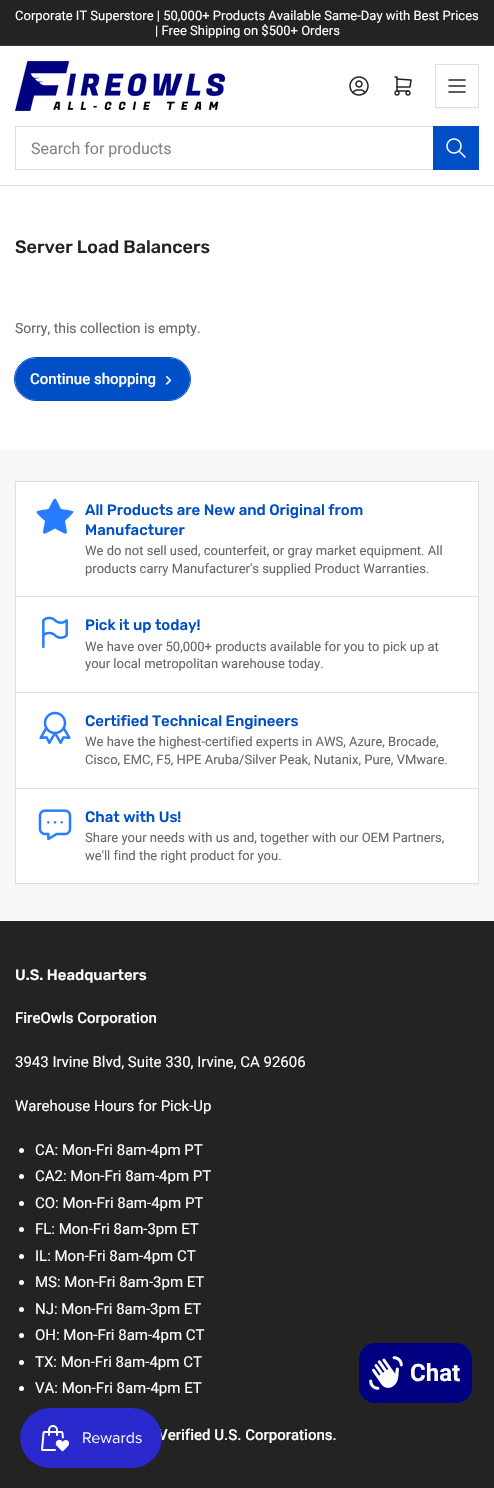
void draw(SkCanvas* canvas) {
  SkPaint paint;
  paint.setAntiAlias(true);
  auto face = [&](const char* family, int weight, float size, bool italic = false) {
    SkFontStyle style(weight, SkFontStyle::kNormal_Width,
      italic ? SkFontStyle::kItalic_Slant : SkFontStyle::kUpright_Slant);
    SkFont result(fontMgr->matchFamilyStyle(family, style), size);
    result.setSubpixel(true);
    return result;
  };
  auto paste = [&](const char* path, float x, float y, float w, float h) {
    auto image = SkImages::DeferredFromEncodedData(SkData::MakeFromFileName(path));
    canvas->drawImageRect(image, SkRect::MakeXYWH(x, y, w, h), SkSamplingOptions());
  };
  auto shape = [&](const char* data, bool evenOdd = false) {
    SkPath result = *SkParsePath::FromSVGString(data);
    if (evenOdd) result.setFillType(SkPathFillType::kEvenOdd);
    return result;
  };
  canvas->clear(0xffffffff);
  {
    const struct { float x, y, w, h; SkColor color; } items[] = {
      {0, 0, 494, 45, 0xff232323},
      {0, 45, 494, 1, 0xff393939},
      {0, 185, 494, 1, 0xffdfdfdf},
    };
    for (auto [x, y, w, h, color] : items) {
      paint.setColor(color);
      canvas->drawRect(SkRect::MakeXYWH(x, y, w, h), paint);
    }
  }
  paste("img/1.png", 15, 61, 210, 50);
  paste("img/2.png", 349, 76, 20, 20);
  paste("img/3.png", 394, 76, 18, 20);
  paint.setColor(0xfff9f9f9);
  canvas->drawRect(SkRect::MakeXYWH(435, 108, 44, 2), paint);
  paint.setStroke(true);
  paint.setStrokeWidth(1);
  paint.setColor(0xffdfdfdf);
  canvas->drawRect(SkRect::MakeXYWH(435.5f, 64.5f, 43, 43), paint);
  paste("img/4.png", 448, 79, 18, 14);
  canvas->drawRect(SkRect::MakeXYWH(15.5f, 126.5f, 463, 43), paint);
  paint.setColor(0xff004fc7);
  canvas->drawRect(SkRect::MakeXYWH(433.5f, 126.5f, 45, 43), paint);
  paint.setStroke(false);
  canvas->drawRect(SkRect::MakeXYWH(434, 127, 44, 42), paint);
  paste("img/5.png", 446, 138, 20, 20);
  paint.setStroke(true);
  canvas->drawRoundRect(SkRect::MakeXYWH(14.5f, 357.5f, 176, 43), 21.5f, 21.5f, paint);
  paint.setStroke(false);
  canvas->drawRoundRect(SkRect::MakeXYWH(15, 358, 175, 42), 21, 21, paint);
  paint.setColor(0xffffffff);
  canvas->drawPath(shape("M166 383.5L168 381.5C168.5 381 169.5 379.5 170.5 379.5C172.5 380 168.5 383 168.5 383.5L167 384.5C166 385 165.5 384 166 383.5Z"), paint);
  canvas->drawPath(shape("M170 381L168 379C167.5 378.5 166 377.5 166 376.5C166.5 374.5 169.5 378 169.5 378.5L171 380C171.5 380.5 170.5 381.5 170 381Z"), paint);
  paint.setColor(0xfff8f8f8);
  canvas->drawRect(SkRect::MakeXYWH(0, 450, 494, 471), paint);
  paint.setColor(0xffffffff);
  canvas->drawRect(SkRect::MakeXYWH(15.5f, 481.5f, 463, 115), paint);
  paint.setStroke(true);
  paint.setColor(0xffdfdfdf);
  canvas->drawRect(SkRect::MakeXYWH(15.5f, 481.5f, 463, 115), paint);
  paint.setStroke(false);
  paint.setColor(0xff287dff);
  canvas->drawPath(shape("M48.5 509C33 511.5 33.5 510 45 521C42 537 41 536 55 528.5C69 536 68 537 65 521C76.5 510 77 511.5 61 509C54 495 56 495 48.5 509Z"), paint);
  paint.setColor(0xffffffff);
  canvas->drawRect(SkRect::MakeXYWH(15.5f, 596.5f, 463, 96), paint);
  paint.setStroke(true);
  paint.setColor(0xffdfdfdf);
  canvas->drawRect(SkRect::MakeXYWH(15.5f, 596.5f, 463, 96), paint);
  paste("img/6.png", 42, 616, 26, 33);
  paint.setStroke(false);
  paint.setColor(0xffffffff);
  canvas->drawRect(SkRect::MakeXYWH(15.5f, 692.5f, 463, 96), paint);
  paint.setStroke(true);
  paint.setColor(0xffdfdfdf);
  canvas->drawRect(SkRect::MakeXYWH(15.5f, 692.5f, 463, 96), paint);
  paste("img/7.png", 39, 711, 32, 34);
  paint.setStroke(false);
  paint.setColor(0xfff3f3f3);
  canvas->drawRect(SkRect::MakeXYWH(15, 884, 464, 2), paint);
  paint.setColor(0xffffffff);
  canvas->drawRect(SkRect::MakeXYWH(15.5f, 788.5f, 463, 95), paint);
  paint.setStroke(true);
  paint.setColor(0xffdfdfdf);
  canvas->drawRect(SkRect::MakeXYWH(15.5f, 788.5f, 463, 95), paint);
  paste("img/8.png", 38, 809, 34, 32);
  paint.setStroke(false);
  paint.setColor(0xff232323);
  canvas->drawRect(SkRect::MakeXYWH(0, 921, 494, 567), paint);
  paint.setColor(0xffffffff);
  canvas->drawCircle(21.5f, 1150.5f, 2.5f, paint);
  canvas->drawCircle(21.5f, 1176.5f, 2.5f, paint);
  canvas->drawCircle(21.5f, 1203.5f, 2.5f, paint);
  canvas->drawCircle(21.5f, 1229.5f, 2.5f, paint);
  canvas->drawCircle(21.5f, 1256.5f, 2.5f, paint);
  canvas->drawCircle(21.5f, 1282.5f, 2.5f, paint);
  canvas->drawCircle(21.5f, 1309.5f, 2.5f, paint);
  canvas->drawCircle(21.5f, 1335.5f, 2.5f, paint);
  canvas->drawCircle(21.5f, 1362.5f, 2.5f, paint);
  canvas->drawCircle(21.5f, 1388.5f, 2.5f, paint);
  paint.setColor(0xff000080);
  canvas->drawRoundRect(SkRect::MakeXYWH(359, 1343, 113, 60), 16, 16, paint);
  paste("img/9.png", 369, 1356, 34, 34);
  auto f0 = face("Roboto", 400, 13);
  paint.setColor(0xffffffff);
  canvas->drawString("Corporate IT Superstore | 50,000+ Products Available Same-Day with Best Prices", 15, 20, f0, paint);
  canvas->drawString("| Free Shipping on $500+ Orders", 155, 35, f0, paint);
  auto f1 = face("Roboto", 400, 16);
  paint.setColor(0xff858585);
  canvas->drawString("Search for products", 31, 154, f1, paint);
  auto f2 = face("Rubik", 500, 18);
  paint.setColor(0xff232323);
  canvas->drawString("Server Load Balancers", 15, 253, f2, paint);
  auto f3 = face("Roboto", 400, 14);
  paint.setColor(0xff676767);
  canvas->drawString("Sorry, this collection is empty.", 15, 333, f3, paint);
  auto f4 = face("Roboto", 500, 15);
  paint.setColor(0xffffffff);
  canvas->drawString("Continue shopping", 30, 384, f4, paint);
  auto f5 = face("Rubik", 500, 15);
  paint.setColor(0xff004fc7);
  canvas->drawString("All Products are New and Original from", 85, 515, f5, paint);
  canvas->drawString("Manufacturer", 85, 535, f5, paint);
  paint.setColor(0xff676767);
  canvas->drawString("We do not sell used, counterfeit, or gray market equipment. All", 85, 555, f0, paint);
  canvas->drawString("products carry Manufacturer's supplied Product Warranties.", 85, 573, f0, paint);
  paint.setColor(0xff004fc7);
  canvas->drawString("Pick it up today!", 85, 630, f5, paint);
  paint.setColor(0xff676767);
  canvas->drawString("We have over 50,000+ products available for you to pick up at", 85, 651, f0, paint);
  canvas->drawString("your local metropolitan warehouse today.", 85, 668, f0, paint);
  paint.setColor(0xff004fc7);
  canvas->drawString("Certified Technical Engineers", 85, 726, f5, paint);
  paint.setColor(0xff676767);
  canvas->drawString("We have the highest-certified experts in AWS, Azure, Brocade,", 85, 746, f0, paint);
  canvas->drawString("Cisco, EMC, F5, HPE Aruba/Silver Peak, Nutanix, Pure, VMware.", 85, 764, f0, paint);
  paint.setColor(0xff004fc7);
  canvas->drawString("Chat with Us!", 85, 822, f5, paint);
  paint.setColor(0xff676767);
  canvas->drawString("Share your needs with us and, together with our OEM Partners,", 85, 842, f0, paint);
  canvas->drawString("we'll find the right product for you.", 85, 860, f0, paint);
  paint.setColor(0xffffffff);
  canvas->drawString("U.S. Headquarters", 15, 980, f5, paint);
  canvas->drawString("FireOwls Corporation", 15, 1023, f4, paint);
  auto f6 = face("Roboto", 400, 15);
  {
    const struct { const char* s; float x, y; } items[] = {
      {"3943 Irvine Blvd, Suite 330, Irvine, CA 92606", 15, 1067},
      {"Warehouse Hours for Pick-Up", 15, 1111},
      {"CA: Mon-Fri 8am-4pm PT", 35, 1155},
      {"CA2: Mon-Fri 8am-4pm PT", 35, 1181},
      {"CO: Mon-Fri 8am-4pm PT", 35, 1208},
      {"FL: Mon-Fri 8am-3pm ET", 35, 1234},
      {"IL: Mon-Fri 8am-4pm CT", 35, 1261},
      {"MS: Mon-Fri 8am-3pm ET", 35, 1287},
      {"NJ: Mon-Fri 8am-3pm ET", 35, 1314},
      {"OH: Mon-Fri 8am-4pm CT", 35, 1340},
      {"TX: Mon-Fri 8am-4pm CT", 35, 1367},
      {"VA: Mon-Fri 8am-4pm ET", 35, 1393},
    };
    for (auto [s, x, y] : items) {
      canvas->drawString(s, x, y, f6, paint);
    }
  }
  canvas->drawString("Verified U.S. Corporations.", 158, 1440, f4, paint);
  auto f7 = face("Roboto", 700, 24);
  canvas->drawString("Chat", 410, 1381, f7, paint);
  paste("img/10.png", 20, 1408, 142, 60);
}
